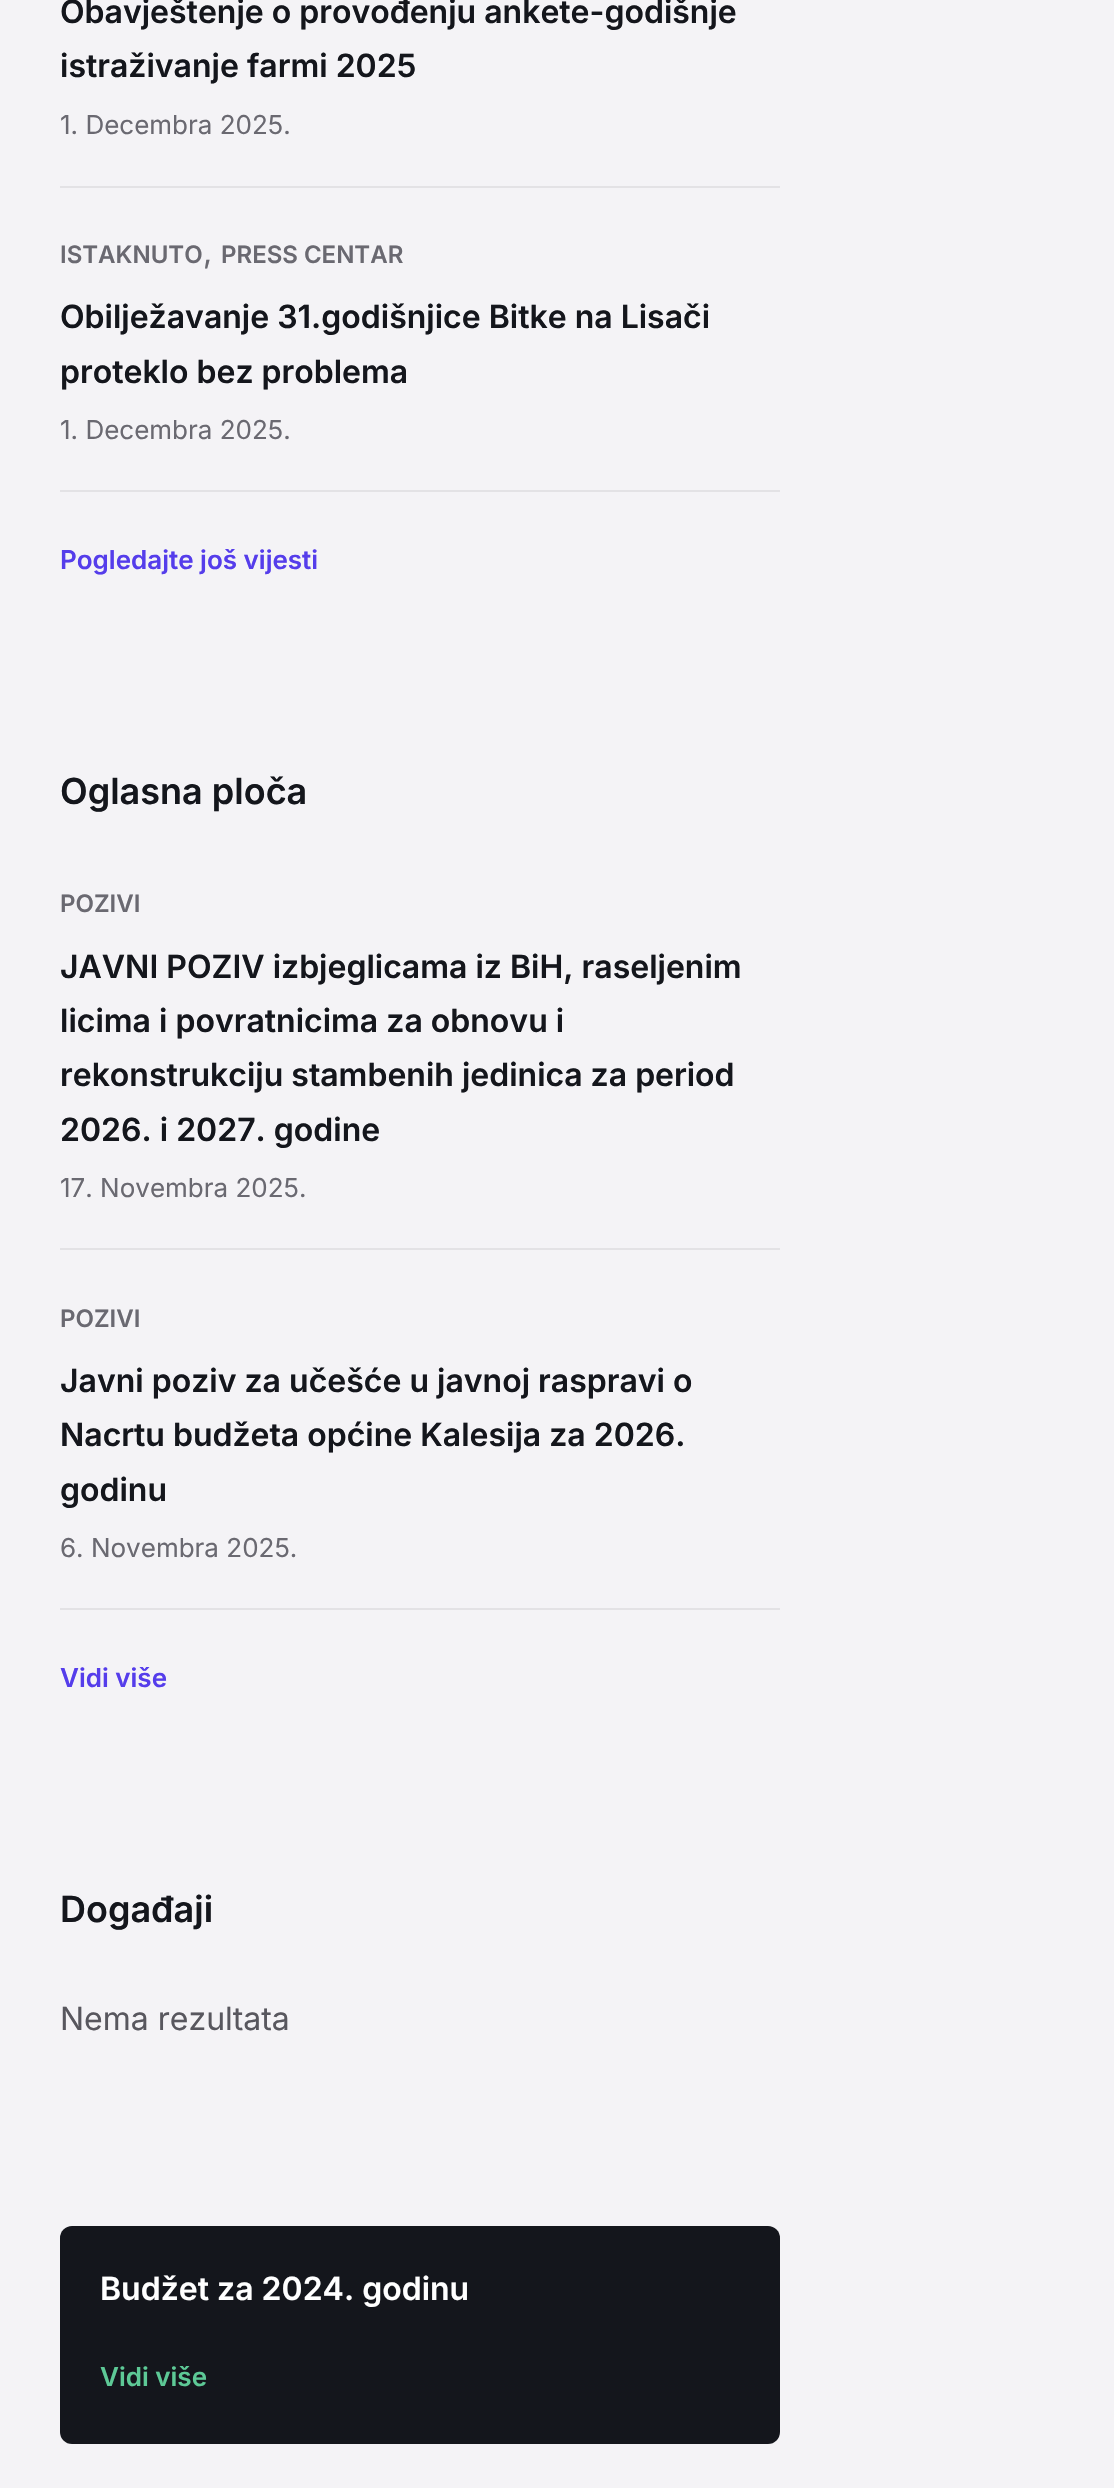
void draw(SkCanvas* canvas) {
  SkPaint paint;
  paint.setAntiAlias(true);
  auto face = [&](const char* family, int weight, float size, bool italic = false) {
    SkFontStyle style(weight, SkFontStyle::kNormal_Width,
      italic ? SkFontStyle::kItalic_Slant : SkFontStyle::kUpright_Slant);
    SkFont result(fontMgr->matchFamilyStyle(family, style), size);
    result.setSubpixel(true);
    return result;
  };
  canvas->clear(0xfff4f3f6);
  {
    const struct { float x, y, w, h; SkColor color; } items[] = {
      {60, 186, 720, 2, 0xffe3e2e5},
      {60, 490, 720, 2, 0xffe3e2e5},
      {60, 1248, 720, 2, 0xffe3e2e5},
      {60, 1608, 720, 2, 0xffe3e2e5},
    };
    for (auto [x, y, w, h, color] : items) {
      paint.setColor(color);
      canvas->drawRect(SkRect::MakeXYWH(x, y, w, h), paint);
    }
  }
  paint.setColor(0xff14161c);
  canvas->drawRoundRect(SkRect::MakeXYWH(60, 2226, 720, 218), 12, 12, paint);
  auto f0 = face("Inter", 600, 32);
  canvas->drawString("Obavještenje o provođenju ankete-godišnje", 60, 23, f0, paint);
  canvas->drawString("istraživanje farmi 2025", 60, 77, f0, paint);
  auto f1 = face("Inter", 400, 26);
  paint.setColor(0xff6a6971);
  canvas->drawString("1. Decembra 2025.", 60, 134, f1, paint);
  auto f2 = face("Inter", 600, 24);
  canvas->drawString("ISTAKNUTO", 60, 263, f2, paint);
  auto f3 = face("Inter", 400, 32);
  canvas->drawString(",", 203, 263, f3, paint);
  canvas->drawString("PRESS CENTAR", 221, 263, f2, paint);
  paint.setColor(0xff14161c);
  canvas->drawString("Obilježavanje 31.godišnjice Bitke na Lisači", 60, 328, f0, paint);
  canvas->drawString("proteklo bez problema", 60, 383, f0, paint);
  paint.setColor(0xff6a6971);
  canvas->drawString("1. Decembra 2025.", 60, 439, f1, paint);
  auto f4 = face("Inter", 600, 26);
  paint.setColor(0xff553deb);
  canvas->drawString("Pogledajte još vijesti", 60, 569, f4, paint);
  auto f5 = face("Inter", 600, 36);
  paint.setColor(0xff14161c);
  canvas->drawString("Oglasna ploča", 60, 804, f5, paint);
  paint.setColor(0xff6a6971);
  canvas->drawString("POZIVI", 60, 912, f2, paint);
  paint.setColor(0xff14161c);
  {
    const struct { const char* s; float x, y; } items[] = {
      {"JAVNI POZIV izbjeglicama iz BiH, raseljenim", 60, 978},
      {"licima i povratnicima za obnovu i", 60, 1032},
      {"rekonstrukciju stambenih jedinica za period", 60, 1086},
      {"2026. i 2027. godine", 60, 1141},
    };
    for (auto [s, x, y] : items) {
      canvas->drawString(s, x, y, f0, paint);
    }
  }
  paint.setColor(0xff6a6971);
  canvas->drawString("17. Novembra 2025.", 60, 1197, f1, paint);
  canvas->drawString("POZIVI", 60, 1327, f2, paint);
  paint.setColor(0xff14161c);
  {
    const struct { const char* s; float x, y; } items[] = {
      {"Javni poziv za učešće u javnoj raspravi o", 60, 1392},
      {"Nacrtu budžeta općine Kalesija za 2026.", 60, 1446},
      {"godinu", 60, 1501},
    };
    for (auto [s, x, y] : items) {
      canvas->drawString(s, x, y, f0, paint);
    }
  }
  paint.setColor(0xff6a6971);
  canvas->drawString("6. Novembra 2025.", 60, 1557, f1, paint);
  paint.setColor(0xff553deb);
  canvas->drawString("Vidi više", 60, 1687, f4, paint);
  paint.setColor(0xff14161c);
  canvas->drawString("Događaji", 60, 1922, f5, paint);
  paint.setColor(0xff58575e);
  canvas->drawString("Nema rezultata", 60, 2030, f3, paint);
  paint.setColor(0xffffffff);
  canvas->drawString("Budžet za 2024. godinu", 100, 2300, f0, paint);
  paint.setColor(0xff5dc996);
  canvas->drawString("Vidi više", 100, 2386, f4, paint);
}
